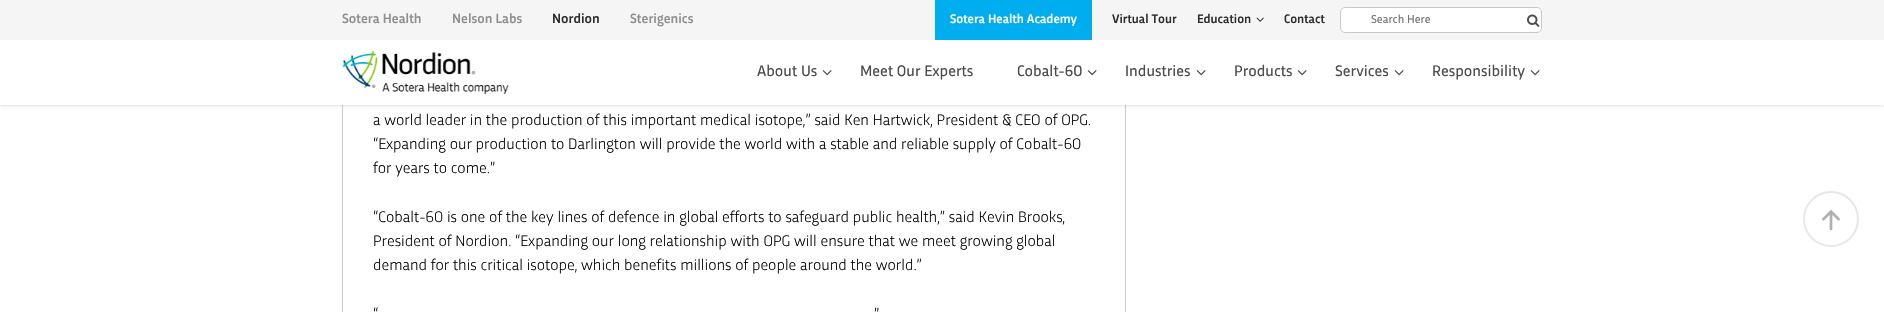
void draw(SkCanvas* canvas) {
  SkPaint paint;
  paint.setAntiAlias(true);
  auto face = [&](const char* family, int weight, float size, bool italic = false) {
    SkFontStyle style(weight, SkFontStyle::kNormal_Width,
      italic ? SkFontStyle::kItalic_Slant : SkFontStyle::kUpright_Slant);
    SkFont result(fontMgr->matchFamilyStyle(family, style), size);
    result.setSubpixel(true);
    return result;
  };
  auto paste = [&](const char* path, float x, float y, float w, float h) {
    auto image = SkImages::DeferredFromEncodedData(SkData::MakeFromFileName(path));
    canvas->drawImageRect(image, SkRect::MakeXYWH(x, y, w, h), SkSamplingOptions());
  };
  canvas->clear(0xffffffff);
  paint.setStroke(true);
  paint.setStrokeWidth(1);
  paint.setColor(0xffcccccc);
  canvas->drawRect(SkRect::MakeXYWH(342.5f, -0.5f, 783, 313), paint);
  paint.setStroke(false);
  paint.setColor(0x1c000000);
  paint.setMaskFilter(SkMaskFilter::MakeBlur(kNormal_SkBlurStyle, 1.5f));
  canvas->drawRect(SkRect::MakeXYWH(0, 41, 1884, 65), paint);
  paint.setMaskFilter(nullptr);
  paint.setColor(0xfff5f5f5);
  canvas->drawRect(SkRect::MakeXYWH(0, 0, 1884, 40), paint);
  paint.setColor(0xff00aeef);
  canvas->drawRect(SkRect::MakeXYWH(935, 0, 157, 40), paint);
  paste("img/1.png", 1256, 17, 8, 5);
  paint.setColor(0xffffffff);
  canvas->drawRoundRect(SkRect::MakeXYWH(1340.5f, 7.5f, 201, 25), 4.5f, 4.5f, paint);
  paint.setStroke(true);
  paint.setColor(0xffc9c9c9);
  canvas->drawRoundRect(SkRect::MakeXYWH(1340.5f, 7.5f, 201, 25), 4.5f, 4.5f, paint);
  paste("img/2.png", 1527, 14, 13, 13);
  paint.setStroke(false);
  paint.setColor(0xffffffff);
  canvas->drawRect(SkRect::MakeXYWH(0, 40, 1884, 65), paint);
  paste("img/3.png", 342, 51, 167, 43);
  paste("img/4.png", 822, 70, 10, 6);
  paste("img/4.png", 1087, 70, 10, 6);
  paste("img/4.png", 1196, 70, 10, 6);
  paste("img/4.png", 1297, 70, 10, 6);
  paste("img/4.png", 1394, 70, 10, 6);
  paste("img/4.png", 1530, 70, 10, 6);
  paint.setStroke(true);
  paint.setStrokeWidth(2);
  paint.setColor(0xffe8e8e8);
  canvas->drawCircle(1831, 219, 27, paint);
  paste("img/5.png", 1822, 209, 18, 22);
  auto f0 = face("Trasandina", 500, 14);
  paint.setStroke(false);
  paint.setColor(0xff8f8f8f);
  canvas->drawString("Sotera Health", 342, 23, f0, paint);
  canvas->drawString("Nelson Labs", 452, 23, f0, paint);
  paint.setColor(0xff2c2c2c);
  canvas->drawString("Nordion", 552, 23, f0, paint);
  paint.setColor(0xff8f8f8f);
  canvas->drawString("Sterigenics", 630, 23, f0, paint);
  auto f1 = face("Trasandina", 500, 13);
  paint.setColor(0xffffffff);
  canvas->drawString("Sotera Health Academy", 950, 23, f1, paint);
  paint.setColor(0xff2c2c2c);
  {
    const struct { const char* s; float x, y; } items[] = {
      {"Virtual Tour", 1112, 23},
      {"Education", 1197, 23},
      {"Contact", 1284, 23},
    };
    for (auto [s, x, y] : items) {
      canvas->drawString(s, x, y, f1, paint);
    }
  }
  auto f2 = face("Trasandina", 400, 12);
  paint.setColor(0xff757575);
  canvas->drawString("Search Here", 1371, 23, f2, paint);
  auto f3 = face("Trasandina", 400, 16);
  paint.setColor(0xff4c4c4c);
  {
    const struct { const char* s; float x, y; } items[] = {
      {"About Us", 757, 76},
      {"Meet Our Experts", 860, 76},
      {"Cobalt-60", 1017, 76},
      {"Industries", 1125, 76},
      {"Products", 1234, 76},
      {"Services", 1335, 76},
      {"Responsibility", 1432, 76},
    };
    for (auto [s, x, y] : items) {
      canvas->drawString(s, x, y, f3, paint);
    }
  }
  auto f4 = face("Trasandina", 300, 16);
  paint.setColor(0xff000000);
  {
    const struct { const char* s; float x, y; } items[] = {
      {"a world leader in the production of this important medical isotope,” said Ken Hartwick, President & CEO of OPG.", 373, 125},
      {"“Expanding our production to Darlington will provide the world with a stable and reliable supply of Cobalt-60", 373, 149},
      {"for years to come.”", 373, 173},
      {"“Cobalt-60 is one of the key lines of defence in global efforts to safeguard public health,” said Kevin Brooks,", 373, 222},
      {"President of Nordion. “Expanding our long relationship with OPG will ensure that we meet growing global", 373, 246},
      {"demand for this critical isotope, which benefits millions of people around the world.”", 373, 270},
      {"“", 373, 319},
      {"”", 874, 319},
    };
    for (auto [s, x, y] : items) {
      canvas->drawString(s, x, y, f4, paint);
    }
  }
}
